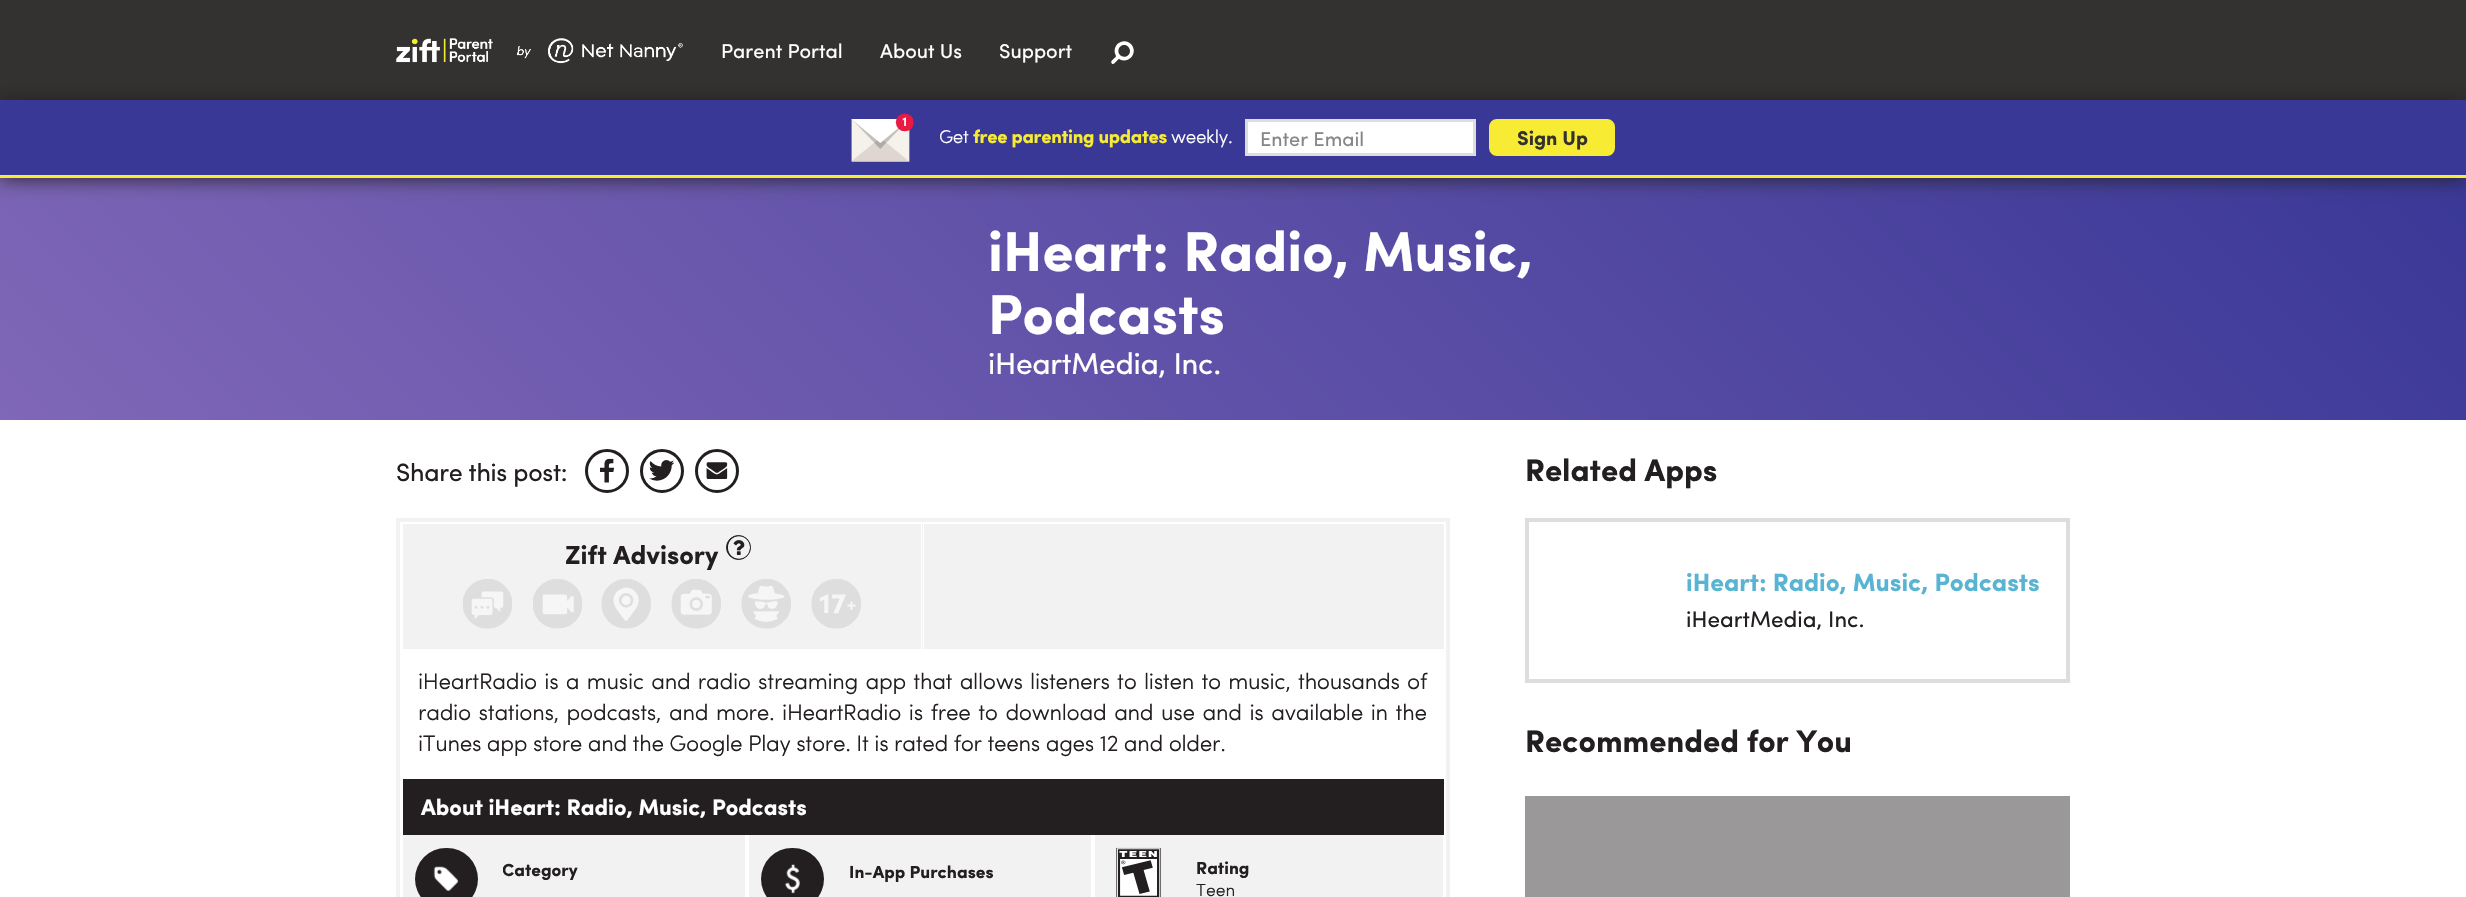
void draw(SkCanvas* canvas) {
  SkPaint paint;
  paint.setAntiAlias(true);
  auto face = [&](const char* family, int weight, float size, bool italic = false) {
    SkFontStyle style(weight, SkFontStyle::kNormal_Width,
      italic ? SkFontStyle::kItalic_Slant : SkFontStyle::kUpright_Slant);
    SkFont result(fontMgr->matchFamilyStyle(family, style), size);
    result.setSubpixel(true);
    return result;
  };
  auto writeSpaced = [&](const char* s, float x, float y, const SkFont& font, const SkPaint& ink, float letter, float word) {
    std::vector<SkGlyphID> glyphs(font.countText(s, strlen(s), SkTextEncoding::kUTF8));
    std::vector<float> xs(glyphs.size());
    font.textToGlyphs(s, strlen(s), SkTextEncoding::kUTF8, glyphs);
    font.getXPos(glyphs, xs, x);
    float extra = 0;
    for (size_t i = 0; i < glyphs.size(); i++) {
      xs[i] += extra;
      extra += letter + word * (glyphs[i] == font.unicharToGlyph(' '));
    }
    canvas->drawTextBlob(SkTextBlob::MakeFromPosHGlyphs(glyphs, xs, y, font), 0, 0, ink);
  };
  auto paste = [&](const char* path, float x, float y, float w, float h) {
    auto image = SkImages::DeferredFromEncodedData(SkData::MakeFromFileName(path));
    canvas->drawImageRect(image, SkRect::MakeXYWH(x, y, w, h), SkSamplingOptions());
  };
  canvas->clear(0xffffffff);
  paint.setColor(0xff343131);
  canvas->drawRect(SkRect::MakeXYWH(0, 0, 2466, 100), paint);
  paste("img/1.png", 396, 38, 287, 26);
  paste("img/2.png", 1111, 41, 23, 23);
  {
    const SkColor colors[] = {0xff8067b7, 0xff3a3897};
    const float stops[] = {0, 1};
    const SkPoint ends[] = {{556, 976}, {1910, -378}};
    paint.setShader(SkGradientShader::MakeLinear(ends, colors, stops, 2, SkTileMode::kClamp));
    paint.setAlpha(255);
  }
  canvas->drawRect(SkRect::MakeXYWH(0, 178, 2466, 242), paint);
  paint.setShader(nullptr);
  paint.setColor(0xff231f20);
  paint.setMaskFilter(SkMaskFilter::MakeBlur(kNormal_SkBlurStyle, 9.5f));
  canvas->drawRect(SkRect::MakeXYWH(0, 100, 2466, 78), paint);
  paint.setMaskFilter(nullptr);
  paint.setColor(0xff3a3897);
  canvas->drawRect(SkRect::MakeXYWH(0, 100, 2466, 75), paint);
  paint.setColor(0xfff7ec33);
  canvas->drawRect(SkRect::MakeXYWH(0, 175, 2466, 3), paint);
  paste("img/3.png", 851, 113, 63, 49);
  paint.setColor(0xffffffff);
  canvas->drawRect(SkRect::MakeXYWH(1246.5f, 120.5f, 228, 34), paint);
  paint.setStroke(true);
  paint.setStrokeWidth(3);
  paint.setColor(0xffdddddd);
  canvas->drawRect(SkRect::MakeXYWH(1246.5f, 120.5f, 228, 34), paint);
  paint.setStroke(false);
  paint.setColor(0xfff7ec33);
  canvas->drawRoundRect(SkRect::MakeXYWH(1490.5f, 120.5f, 123, 34), 6.5f, 6.5f, paint);
  paint.setStroke(true);
  canvas->drawRoundRect(SkRect::MakeXYWH(1490.5f, 120.5f, 123, 34), 6.5f, 6.5f, paint);
  paint.setColor(0xff231f20);
  canvas->drawCircle(607, 471, 20.5f, paint);
  paste("img/4.png", 600, 458, 14, 25);
  canvas->drawCircle(662, 471, 20.5f, paint);
  paste("img/5.png", 649, 460, 26, 21);
  canvas->drawCircle(717, 471, 20.5f, paint);
  paste("img/6.png", 706, 462, 22, 17);
  paint.setStrokeWidth(4);
  paint.setColor(0xfff2f2f2);
  canvas->drawRect(SkRect::MakeXYWH(398, 520, 1050, 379), paint);
  paint.setStroke(false);
  canvas->drawRect(SkRect::MakeXYWH(403, 524, 520, 125), paint);
  paint.setColor(0xffffffff);
  canvas->drawRect(SkRect::MakeXYWH(921, 524, 1, 125), paint);
  paint.setColor(0xff231f20);
  canvas->drawCircle(738.5f, 547.5f, 12, paint);
  paint.setStroke(true);
  paint.setStrokeWidth(1);
  canvas->drawCircle(738.5f, 547.5f, 12, paint);
  paste("img/7.png", 728, 536, 22, 23);
  paste("img/8.png", 463, 579, 49, 50);
  paste("img/9.png", 533, 579, 49, 50);
  paste("img/10.png", 601, 579, 50, 50);
  paste("img/11.png", 671, 579, 50, 50);
  paste("img/12.png", 741, 579, 50, 50);
  paste("img/13.png", 811, 579, 50, 50);
  paint.setStroke(false);
  {
    const struct { float x, y, w, h; SkColor color; } items[] = {
      {924, 524, 520, 125, 0xfff2f2f2},
      {403, 779, 1041, 56, 0xff231f20},
      {403, 835, 342, 62, 0xfff2f2f2},
    };
    for (auto [x, y, w, h, color] : items) {
      paint.setColor(color);
      canvas->drawRect(SkRect::MakeXYWH(x, y, w, h), paint);
    }
  }
  paint.setColor(0xff231f20);
  canvas->drawRoundRect(SkRect::MakeXYWH(415, 848, 63, 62), 31, 31, paint);
  paste("img/14.png", 433, 866, 26, 25);
  paint.setColor(0xfff2f2f2);
  canvas->drawRect(SkRect::MakeXYWH(749, 835, 342, 62), paint);
  paint.setColor(0xff231f20);
  canvas->drawRoundRect(SkRect::MakeXYWH(761, 848, 63, 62), 31, 31, paint);
  paste("img/15.png", 784, 864, 16, 30);
  paint.setColor(0xfff2f2f2);
  canvas->drawRect(SkRect::MakeXYWH(1095, 835, 348, 62), paint);
  paste("img/16.png", 1116, 847, 45, 50);
  paint.setStroke(true);
  paint.setStrokeWidth(4);
  paint.setColor(0xffdddddd);
  canvas->drawRect(SkRect::MakeXYWH(1527, 520, 541, 161), paint);
  paint.setStroke(false);
  {
    const SkColor colors[] = {0xff9a9898, 0xff9a9898, 0xff808080};
    const float stops[] = {0, 0.58f, 0.85f};
    const SkPoint ends[] = {{1798, 796}, {1798, 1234}};
    paint.setShader(SkGradientShader::MakeLinear(ends, colors, stops, 3, SkTileMode::kClamp));
    paint.setAlpha(255);
  }
  canvas->drawRect(SkRect::MakeXYWH(1525, 796, 545, 101), paint);
  auto f0 = face("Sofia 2", 400, 20);
  paint.setShader(nullptr);
  paint.setColor(0xffffffff);
  {
    const struct { const char* s; float x, y; } items[] = {
      {"Parent Portal", 721, 58},
      {"About Us", 880, 58},
      {"Support", 999, 58},
    };
    for (auto [s, x, y] : items) {
      canvas->drawString(s, x, y, f0, paint);
    }
  }
  auto f1 = face("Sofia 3", 400, 18.75f);
  writeSpaced("Get", 939, 143, f1, paint, -0.31f, 0);
  auto f2 = face("Sofia", 400, 18.75f);
  paint.setColor(0xfff7ec33);
  writeSpaced("free parenting updates", 973, 143, f2, paint, -0.31f, 0);
  paint.setColor(0xffffffff);
  writeSpaced("weekly.", 1171, 143, f1, paint, -0.31f, 0);
  paint.setColor(0xff888687);
  canvas->drawString("Enter Email", 1260, 146, f0, paint);
  auto f3 = face("Sofia", 400, 20);
  paint.setColor(0xff343131);
  canvas->drawString("Sign Up", 1517, 145, f3, paint);
  auto f4 = face("Sofia", 400, 56.25f);
  paint.setColor(0xffffffff);
  canvas->drawString("iHeart: Radio, Music,", 988, 271, f4, paint);
  canvas->drawString("Podcasts", 988, 334, f4, paint);
  auto f5 = face("Sofia 2", 400, 30);
  writeSpaced("iHeartMedia, Inc.", 988, 374, f5, paint, -0.31f, 0);
  auto f6 = face("Sofia 2", 400, 25);
  paint.setColor(0xff231f20);
  writeSpaced("Share this post:", 396, 481, f6, paint, -0.31f, 0);
  auto f7 = face("Sofia", 400, 26.25f);
  canvas->drawString("Zift Advisory", 565, 564, f7, paint);
  auto f8 = face("Sofia 3", 400, 22.5f);
  writeSpaced("iHeartRadio is a music and radio streaming app that allows listeners to listen to music, thousands of", 418, 689, f8, paint, -0.31f, 1.75f);
  writeSpaced("radio stations, podcasts, and more. iHeartRadio is free to download and use and is available in the", 418, 720, f8, paint, -0.31f, 2.1f);
  writeSpaced("iTunes app store and the Google Play store. It is rated for teens ages 12 and older.", 418, 751, f8, paint, -0.31f, 0);
  auto f9 = face("Sofia", 400, 22.5f);
  paint.setColor(0xffffffff);
  canvas->drawString("About iHeart: Radio, Music, Podcasts", 421, 815, f9, paint);
  canvas->save();
  canvas->clipRect(SkRect::MakeXYWH(503, 848, 230, 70));
  auto f10 = face("Sofia", 400, 17.5f);
  paint.setColor(0xff231f20);
  canvas->drawString("Category", 502, 876, f10, paint);
  canvas->restore();
  canvas->drawString("In-App Purchases", 849, 878, f10, paint);
  canvas->drawString("Rating", 1196, 874, f10, paint);
  auto f11 = face("Sofia 3", 400, 17.5f);
  canvas->drawString("Teen", 1196, 896, f11, paint);
  auto f12 = face("Sofia", 400, 31.25f);
  canvas->drawString("Related Apps", 1525, 481, f12, paint);
  auto f13 = face("Sofia", 400, 25);
  paint.setColor(0xff58b4d2);
  canvas->drawString("iHeart: Radio, Music, Podcasts", 1686, 591, f13, paint);
  auto f14 = face("Sofia 2", 400, 22.5f);
  paint.setColor(0xff231f20);
  canvas->drawString("iHeartMedia, Inc.", 1686, 627, f14, paint);
  canvas->drawString("Recommended for You", 1525, 752, f12, paint);
}
